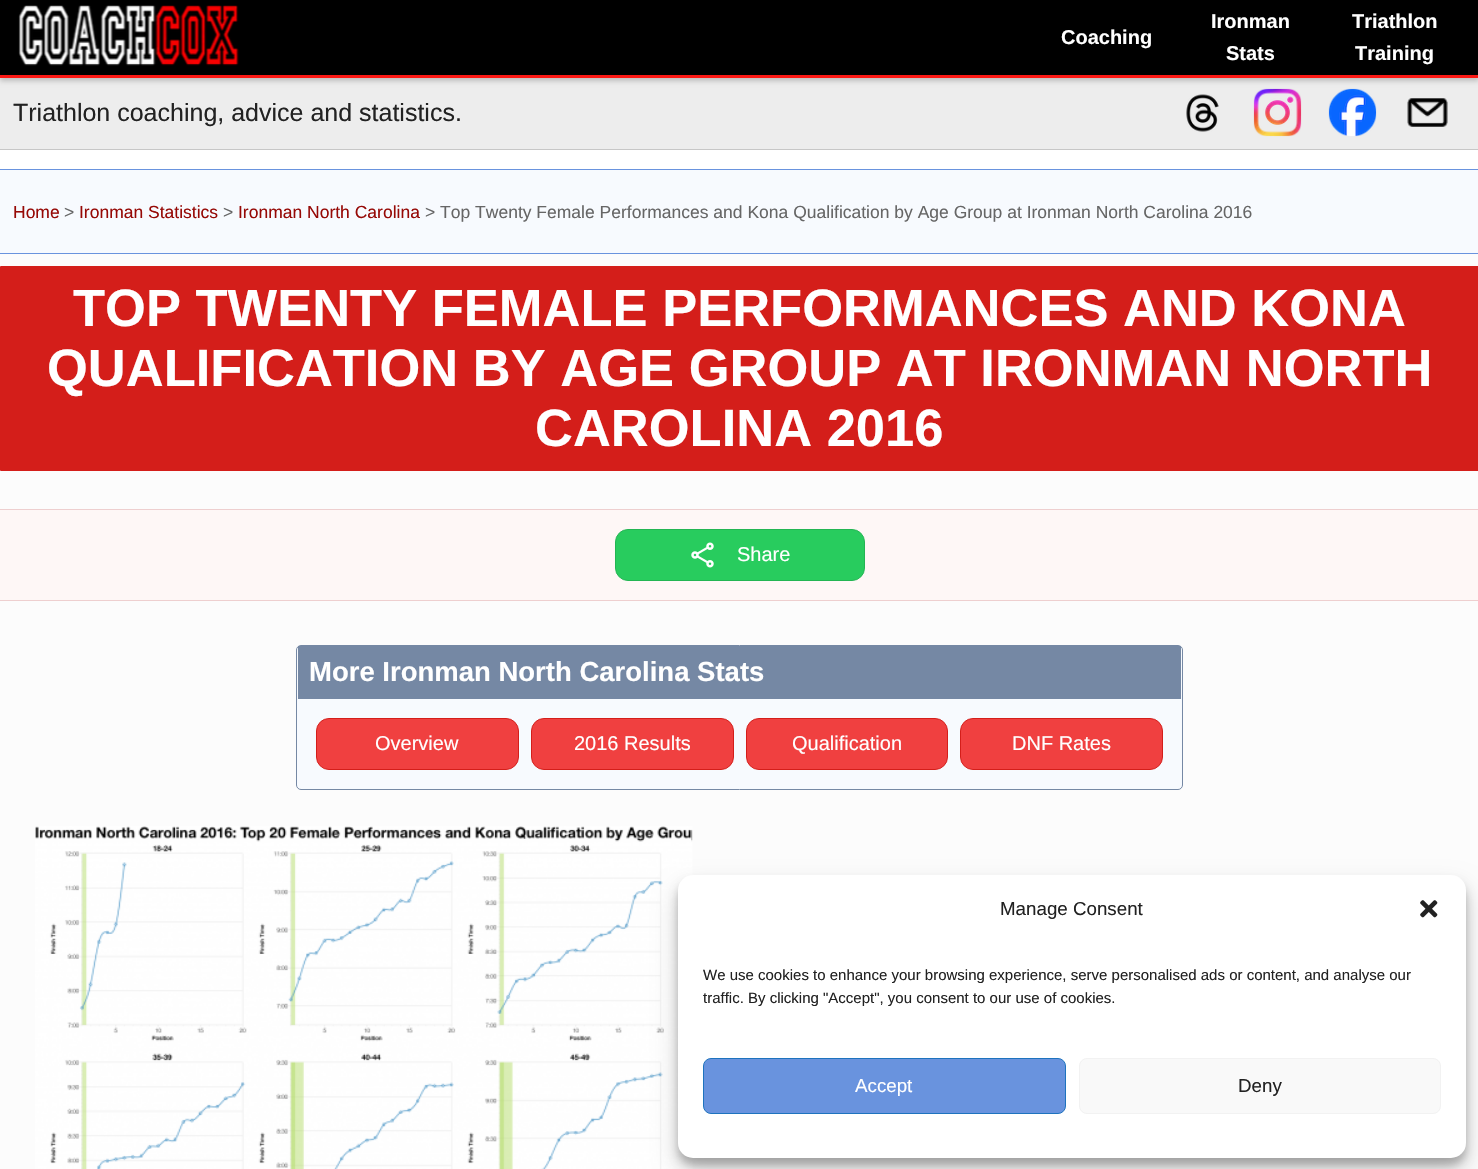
void draw(SkCanvas* canvas) {
  SkPaint paint;
  paint.setAntiAlias(true);
  auto face = [&](const char* family, int weight, float size, bool italic = false) {
    SkFontStyle style(weight, SkFontStyle::kNormal_Width,
      italic ? SkFontStyle::kItalic_Slant : SkFontStyle::kUpright_Slant);
    SkFont result(fontMgr->matchFamilyStyle(family, style), size);
    result.setSubpixel(true);
    return result;
  };
  auto paste = [&](const char* path, float x, float y, float w, float h) {
    auto image = SkImages::DeferredFromEncodedData(SkData::MakeFromFileName(path));
    canvas->drawImageRect(image, SkRect::MakeXYWH(x, y, w, h), SkSamplingOptions());
  };
  canvas->clear(0xffffffff);
  paint.setColor(0xffededed);
  canvas->drawRect(SkRect::MakeXYWH(0, 78, 1478, 71), paint);
  paste("img/3.png", 1253, 88, 49, 49);
  paste("img/4.png", 1328, 88, 49, 49);
  paint.setColor(0x33000000);
  paint.setMaskFilter(SkMaskFilter::MakeBlur(kNormal_SkBlurStyle, 2.5f));
  canvas->drawRect(SkRect::MakeXYWH(0, 4, 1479, 77), paint);
  paint.setMaskFilter(nullptr);
  paint.setColor(0xff000000);
  canvas->drawRect(SkRect::MakeXYWH(0, 0, 1478, 75), paint);
  paint.setColor(0xfffc1814);
  canvas->drawRect(SkRect::MakeXYWH(0, 75, 1478, 3), paint);
  paste("img/1.png", 18, 5, 221, 61);
  paint.setColor(0xffc7c7c7);
  canvas->drawRect(SkRect::MakeXYWH(0, 149, 1478, 1), paint);
  paste("img/2.png", 1186, 94, 33, 38);
  paste("img/5.png", 1407, 98, 41, 29);
  {
    const struct { float x, y, w, h; SkColor color; } items[] = {
      {0, 254, 1478, 915, 0xfffcfcfc},
      {0, 170, 1478, 83, 0xfff7fafe},
      {0, 169, 1478, 1, 0xff6993de},
      {0, 253, 1478, 1, 0xff6993de},
    };
    for (auto [x, y, w, h, color] : items) {
      paint.setColor(color);
      canvas->drawRect(SkRect::MakeXYWH(x, y, w, h), paint);
    }
  }
  paint.setColor(0xffd41e1a);
  canvas->drawRoundRect(SkRect::MakeXYWH(0, 266, 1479, 205), 1, 1, paint);
  {
    const struct { float x, y, w, h; SkColor color; } items[] = {
      {0, 510, 1478, 90, 0xfffef7f6},
      {0, 509, 1478, 1, 0xffeecfcf},
      {0, 600, 1478, 1, 0xffeecfcf},
    };
    for (auto [x, y, w, h, color] : items) {
      paint.setColor(color);
      canvas->drawRect(SkRect::MakeXYWH(x, y, w, h), paint);
    }
  }
  paint.setColor(0xff28cc5e);
  canvas->drawRoundRect(SkRect::MakeXYWH(615.5f, 529.5f, 249, 51), 12.5f, 12.5f, paint);
  paint.setStroke(true);
  paint.setStrokeWidth(1);
  paint.setColor(0xff23b553);
  canvas->drawRoundRect(SkRect::MakeXYWH(615.5f, 529.5f, 249, 51), 12.5f, 12.5f, paint);
  paste("img/6.png", 691, 542, 23, 26);
  paint.setStroke(false);
  paint.setColor(0xfff7fafe);
  canvas->drawRoundRect(SkRect::MakeXYWH(296.5f, 645.5f, 886, 144), 4.5f, 4.5f, paint);
  paint.setStroke(true);
  paint.setColor(0xff7588a4);
  canvas->drawRoundRect(SkRect::MakeXYWH(296.5f, 645.5f, 886, 144), 4.5f, 4.5f, paint);
  paint.setStroke(false);
  canvas->drawRect(SkRect::MakeXYWH(298, 646, 883, 53), paint);
  paint.setColor(0xfff04040);
  canvas->drawRoundRect(SkRect::MakeXYWH(316.5f, 718.5f, 202, 51), 12.5f, 12.5f, paint);
  paint.setStroke(true);
  paint.setColor(0xffd41e1a);
  canvas->drawRoundRect(SkRect::MakeXYWH(316.5f, 718.5f, 202, 51), 12.5f, 12.5f, paint);
  paint.setStroke(false);
  paint.setColor(0xfff04040);
  canvas->drawRoundRect(SkRect::MakeXYWH(531.5f, 718.5f, 202, 51), 12.5f, 12.5f, paint);
  paint.setStroke(true);
  paint.setColor(0xffd41e1a);
  canvas->drawRoundRect(SkRect::MakeXYWH(531.5f, 718.5f, 202, 51), 12.5f, 12.5f, paint);
  paint.setStroke(false);
  paint.setColor(0xfff04040);
  canvas->drawRoundRect(SkRect::MakeXYWH(746.5f, 718.5f, 201, 51), 12.5f, 12.5f, paint);
  paint.setStroke(true);
  paint.setColor(0xffd41e1a);
  canvas->drawRoundRect(SkRect::MakeXYWH(746.5f, 718.5f, 201, 51), 12.5f, 12.5f, paint);
  paint.setStroke(false);
  paint.setColor(0xfff04040);
  canvas->drawRoundRect(SkRect::MakeXYWH(960.5f, 718.5f, 202, 51), 12.5f, 12.5f, paint);
  paint.setStroke(true);
  paint.setColor(0xffd41e1a);
  canvas->drawRoundRect(SkRect::MakeXYWH(960.5f, 718.5f, 202, 51), 12.5f, 12.5f, paint);
  paste("img/7.png", 35, 826, 658, 343);
  paint.setStroke(false);
  paint.setColor(0x3b000000);
  paint.setMaskFilter(SkMaskFilter::MakeBlur(kNormal_SkBlurStyle, 4));
  canvas->drawRoundRect(SkRect::MakeXYWH(678, 883, 788, 282), 15, 15, paint);
  paint.setMaskFilter(nullptr);
  paint.setColor(0x30000000);
  paint.setMaskFilter(SkMaskFilter::MakeBlur(kNormal_SkBlurStyle, 12.5f));
  canvas->drawRoundRect(SkRect::MakeXYWH(678, 888, 788, 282), 15, 15, paint);
  paint.setMaskFilter(nullptr);
  paint.setColor(0xffffffff);
  canvas->drawRoundRect(SkRect::MakeXYWH(678, 875, 788, 283), 15, 15, paint);
  paste("img/8.png", 1420, 900, 18, 18);
  paint.setColor(0xff6993de);
  canvas->drawRoundRect(SkRect::MakeXYWH(703.5f, 1058.5f, 362, 55), 7.5f, 7.5f, paint);
  paint.setStroke(true);
  paint.setColor(0xff1e73be);
  canvas->drawRoundRect(SkRect::MakeXYWH(703.5f, 1058.5f, 362, 55), 7.5f, 7.5f, paint);
  paint.setStroke(false);
  paint.setColor(0xfff9f9f9);
  canvas->drawRoundRect(SkRect::MakeXYWH(1079.5f, 1058.5f, 361, 55), 7.5f, 7.5f, paint);
  paint.setStroke(true);
  paint.setColor(0xfff2f2f2);
  canvas->drawRoundRect(SkRect::MakeXYWH(1079.5f, 1058.5f, 361, 55), 7.5f, 7.5f, paint);
  auto f0 = face("Liberation Sans", 700, 20);
  paint.setStroke(false);
  paint.setColor(0xffffffff);
  {
    const struct { const char* s; float x, y; } items[] = {
      {"Coaching", 1061, 44},
      {"Ironman", 1211, 28},
      {"Stats", 1226, 60},
      {"Triathlon", 1352, 28},
      {"Training", 1355, 60},
    };
    for (auto [s, x, y] : items) {
      canvas->drawString(s, x, y, f0, paint);
    }
  }
  auto f1 = face("Liberation Sans", 400, 25);
  paint.setColor(0xff222222);
  canvas->drawString("Triathlon coaching, advice and statistics.", 13, 121, f1, paint);
  auto f2 = face("Liberation Sans", 400, 17.5f);
  paint.setColor(0xff960906);
  canvas->drawString("Home", 13, 218, f2, paint);
  paint.setColor(0xff666666);
  canvas->drawString(">", 64, 218, f2, paint);
  paint.setColor(0xff960906);
  canvas->drawString("Ironman Statistics", 79, 218, f2, paint);
  paint.setColor(0xff666666);
  canvas->drawString(">", 223, 218, f2, paint);
  paint.setColor(0xff960906);
  canvas->drawString("Ironman North Carolina", 238, 218, f2, paint);
  paint.setColor(0xff666666);
  canvas->drawString("> Top Twenty Female Performances and Kona Qualification by Age Group at Ironman North Carolina 2016", 425, 218, f2, paint);
  auto f3 = face("Liberation Sans", 700, 52.5f);
  paint.setColor(0xffffffff);
  {
    const struct { const char* s; float x, y; } items[] = {
      {"TOP TWENTY FEMALE PERFORMANCES AND KONA", 73, 326},
      {"QUALIFICATION BY AGE GROUP AT IRONMAN NORTH", 47, 386},
      {"CAROLINA 2016", 535, 446},
    };
    for (auto [s, x, y] : items) {
      canvas->drawString(s, x, y, f3, paint);
    }
  }
  auto f4 = face("Liberation Sans", 400, 20);
  canvas->drawString("Share", 737, 561, f4, paint);
  auto f5 = face("Liberation Sans", 700, 27.5f);
  canvas->drawString("More Ironman North Carolina Stats", 309, 681, f5, paint);
  {
    const struct { const char* s; float x, y; } items[] = {
      {"Overview", 375, 750},
      {"2016 Results", 574, 750},
      {"Qualification", 792, 750},
      {"DNF Rates", 1012, 750},
    };
    for (auto [s, x, y] : items) {
      canvas->drawString(s, x, y, f4, paint);
    }
  }
  auto f6 = face("Liberation Sans", 400, 18.75f);
  paint.setColor(0xff222222);
  canvas->drawString("Manage Consent", 1000, 915, f6, paint);
  auto f7 = face("Liberation Sans", 400, 15);
  canvas->drawString("We use cookies to enhance your browsing experience, serve personalised ads or content, and analyse our", 703, 980, f7, paint);
  canvas->drawString("traffic. By clicking \"Accept\", you consent to our use of cookies.", 703, 1003, f7, paint);
  paint.setColor(0xffffffff);
  canvas->drawString("Accept", 855, 1092, f6, paint);
  paint.setColor(0xff222222);
  canvas->drawString("Deny", 1238, 1092, f6, paint);
}
